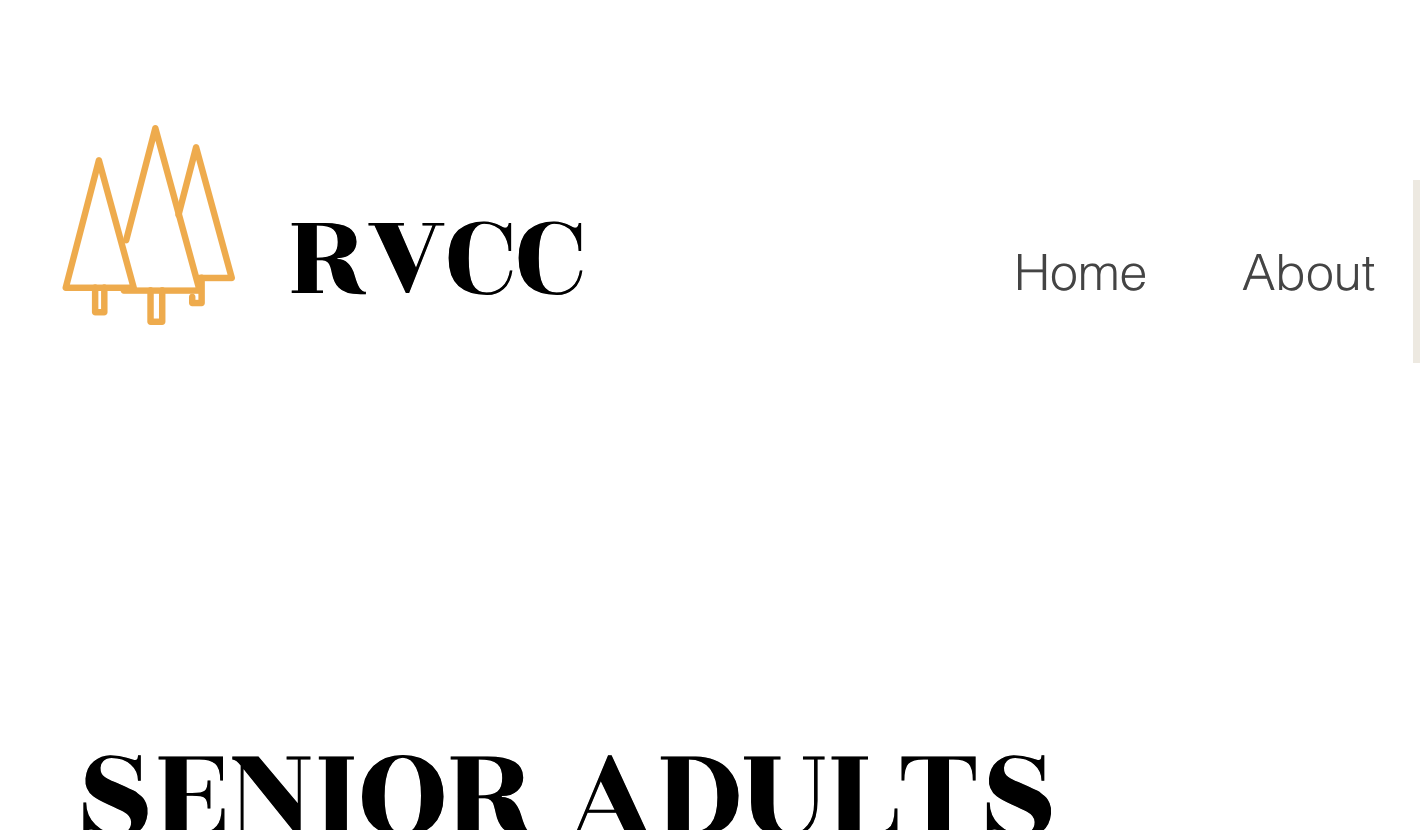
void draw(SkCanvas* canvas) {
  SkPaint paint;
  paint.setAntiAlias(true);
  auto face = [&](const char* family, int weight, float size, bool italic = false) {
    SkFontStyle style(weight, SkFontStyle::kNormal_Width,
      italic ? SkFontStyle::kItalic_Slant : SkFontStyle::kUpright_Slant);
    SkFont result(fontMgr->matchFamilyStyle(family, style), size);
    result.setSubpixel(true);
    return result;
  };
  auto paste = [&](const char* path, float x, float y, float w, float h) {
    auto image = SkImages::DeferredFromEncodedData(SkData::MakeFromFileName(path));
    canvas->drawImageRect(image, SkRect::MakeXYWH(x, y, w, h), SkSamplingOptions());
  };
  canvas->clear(0xffffffff);
  paste("img/1.png", 62, 125, 173, 200);
  paint.setColor(0xffede9e1);
  canvas->drawRect(SkRect::MakeXYWH(1413, 180, 7, 183), paint);
  auto f0 = face("Rozha One", 400, 125);
  paint.setColor(0xff000000);
  canvas->drawString("RVCC", 288, 293, f0, paint);
  auto f1 = face("helvetica", 300, 50);
  paint.setColor(0xff444444);
  canvas->drawString("Home", 1014, 290, f1, paint);
  canvas->drawString("About", 1242, 290, f1, paint);
  auto f2 = face("Rozha One", 400, 140);
  paint.setColor(0xff000000);
  canvas->drawString("SENIOR ADULTS", 75, 835, f2, paint);
}
